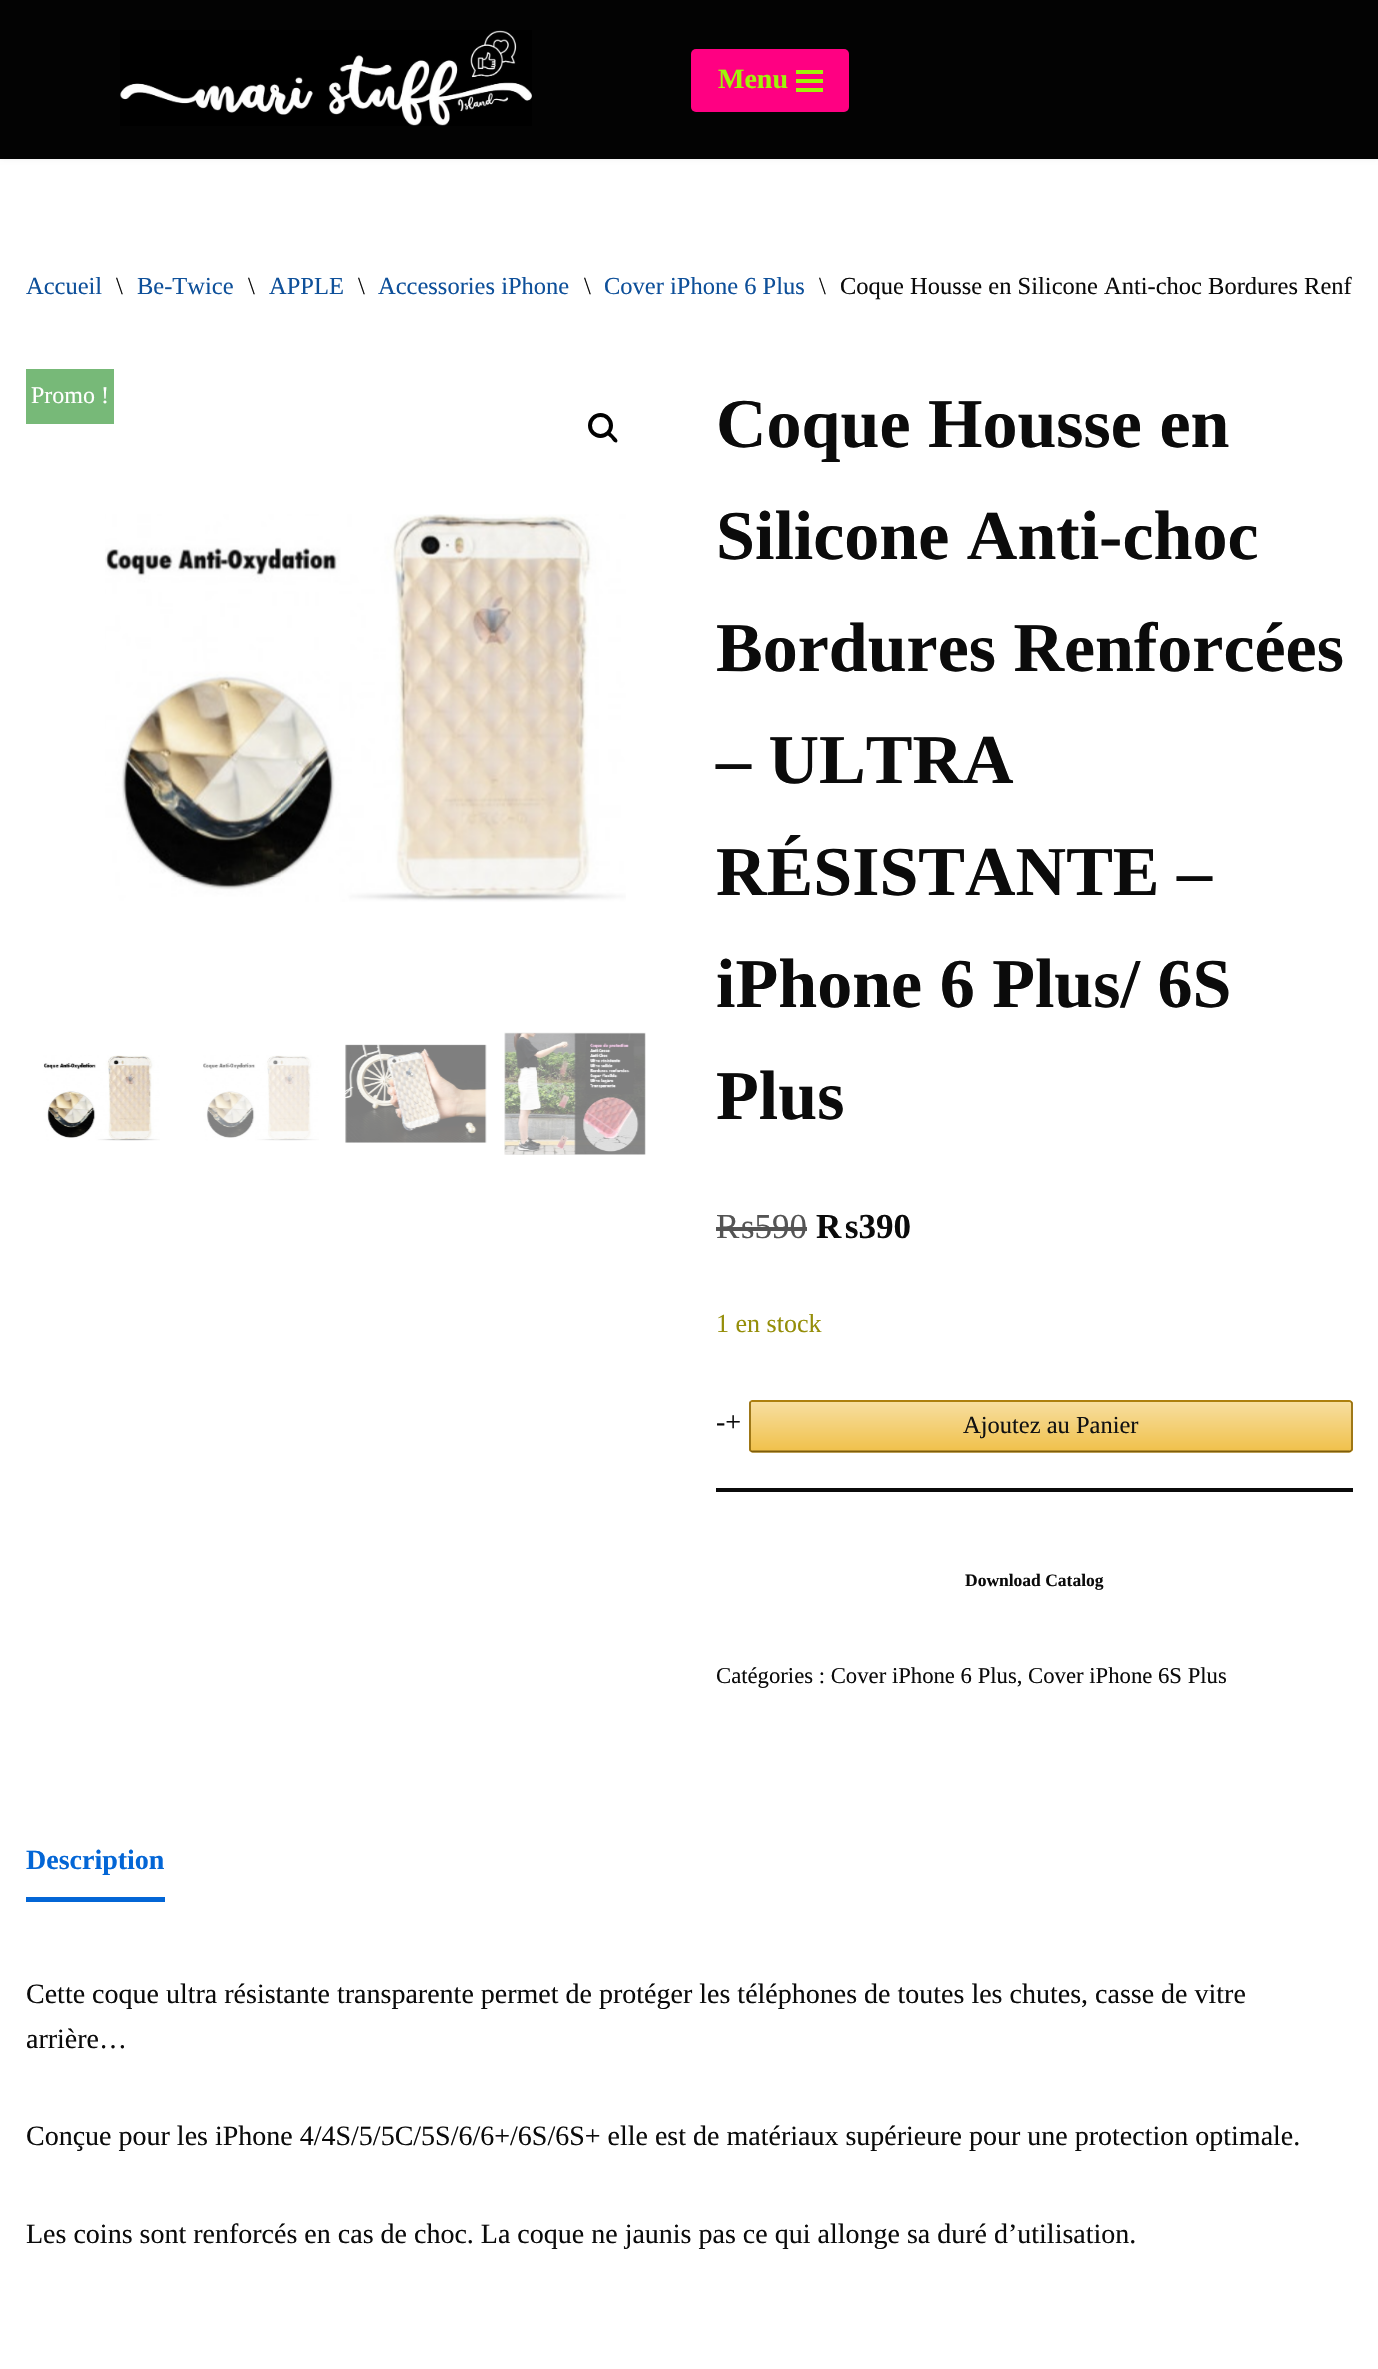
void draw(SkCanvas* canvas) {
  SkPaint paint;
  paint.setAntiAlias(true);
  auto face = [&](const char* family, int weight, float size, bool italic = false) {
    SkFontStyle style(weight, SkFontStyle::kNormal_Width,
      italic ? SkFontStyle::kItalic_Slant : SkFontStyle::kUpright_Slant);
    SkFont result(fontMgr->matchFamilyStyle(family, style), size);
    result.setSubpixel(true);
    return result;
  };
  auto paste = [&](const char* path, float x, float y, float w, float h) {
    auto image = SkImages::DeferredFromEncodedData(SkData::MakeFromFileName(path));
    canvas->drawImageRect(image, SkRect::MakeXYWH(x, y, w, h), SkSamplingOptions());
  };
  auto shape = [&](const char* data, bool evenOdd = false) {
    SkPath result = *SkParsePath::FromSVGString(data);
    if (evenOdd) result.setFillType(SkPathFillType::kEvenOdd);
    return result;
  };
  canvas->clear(0xffffffff);
  paint.setColor(0x1a000000);
  paint.setMaskFilter(SkMaskFilter::MakeBlur(kNormal_SkBlurStyle, 2.5f));
  canvas->drawRect(SkRect::MakeXYWH(0, -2, 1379, 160), paint);
  paint.setMaskFilter(nullptr);
  paint.setColor(0xff030303);
  canvas->drawRect(SkRect::MakeXYWH(0, 0, 1378, 159), paint);
  paste("img/1.png", 120, 30, 412, 96);
  paint.setColor(0xffff0082);
  canvas->drawRoundRect(SkRect::MakeXYWH(691, 49, 158, 63), 5, 5, paint);
  {
    const struct { float x, y, w, h; SkColor color; } items[] = {
      {796, 70, 27, 4, 0xff9ef409},
      {796, 79, 27, 4, 0xff9ef409},
      {796, 88, 27, 4, 0xff9ef409},
      {26, 369, 88, 55, 0xff77b978},
    };
    for (auto [x, y, w, h, color] : items) {
      paint.setColor(color);
      canvas->drawRect(SkRect::MakeXYWH(x, y, w, h), paint);
    }
  }
  paint.setStroke(true);
  paint.setStrokeWidth(4);
  paint.setColor(0xff000000);
  canvas->drawCircle(600.5f, 425.5f, 10.5f, paint);
  paint.setStroke(false);
  canvas->drawPath(shape("M607 432C609 430 612.5 434.5 613.5 435.5C614.5 437 619 440 617 442C615 444 612 439.5 611 438C610 437 605.5 434 607 432Z"), paint);
  paste("img/2.png", 105, 514, 521, 388);
  paste("img/3.png", 43, 1055, 117, 86);
  paste("img/4.png", 203, 1055, 116, 86);
  paste("img/5.png", 345, 1044, 142, 99);
  paste("img/6.png", 504, 1032, 142, 123);
  paint.setColor(0xff545454);
  canvas->drawRect(SkRect::MakeXYWH(716, 1227, 91, 4), paint);
  paint.setColor(0xff0b0b0b);
  canvas->drawRect(SkRect::MakeXYWH(716, 1488, 637, 4), paint);
  canvas->save();
  canvas->clipPath(shape("M753 1400H1349C1351 1400 1353 1402 1353 1404V1449C1353 1451 1351 1453 1349 1453H753C751 1453 749 1451 749 1449V1404C749 1402 751 1400 753 1400Z"), true);
  {
    const SkColor colors[] = {0xfff7dea0, 0xfff0c14b};
    const float stops[] = {0, 1};
    const SkPoint ends[] = {{1051, 1353}, {1051, 1402}};
    paint.setShader(SkGradientShader::MakeLinear(ends, colors, stops, 2, SkTileMode::kClamp));
    paint.setAlpha(255);
  }
  canvas->drawRect(SkRect::MakeXYWH(749, 1400, 604, 2), paint);
  {
    const SkColor colors[] = {0xfff7dea0, 0xfff0c14b};
    const float stops[] = {0, 1};
    const SkPoint ends[] = {{1051, 1402}, {1051, 1451}};
    paint.setShader(SkGradientShader::MakeLinear(ends, colors, stops, 2, SkTileMode::kClamp));
    paint.setAlpha(255);
  }
  canvas->drawRect(SkRect::MakeXYWH(749, 1402, 604, 49), paint);
  {
    const SkColor colors[] = {0xfff7dea0, 0xfff0c14b};
    const float stops[] = {0, 1};
    const SkPoint ends[] = {{1051, 1451}, {1051, 1500}};
    paint.setShader(SkGradientShader::MakeLinear(ends, colors, stops, 2, SkTileMode::kClamp));
    paint.setAlpha(255);
  }
  canvas->drawRect(SkRect::MakeXYWH(749, 1451, 604, 2), paint);
  canvas->restore();
  paint.setStroke(true);
  paint.setStrokeWidth(1.8f);
  paint.setShader(nullptr);
  paint.setColor(0xffad800e);
  canvas->drawPath(shape("M750.5 1401.5L752.5 1401H1349L1351 1401.5"), paint);
  paint.setColor(0xff966e0c);
  canvas->drawPath(shape("M1351 1401.5L1352 1403V1449.5L1351 1451"), paint);
  paint.setColor(0xff7e5d0b);
  canvas->drawPath(shape("M1351 1451L1349 1451.5H752.5L750.5 1451"), paint);
  paint.setColor(0xff966e0c);
  canvas->drawPath(shape("M750.5 1451L750 1449.5V1403L750.5 1401.5"), paint);
  paint.setStroke(false);
  paint.setColor(0xff0366d6);
  canvas->drawRect(SkRect::MakeXYWH(26, 1897, 139, 5), paint);
  auto f0 = face("Liberation Serif", 700, 28);
  paint.setColor(0xff9ef409);
  canvas->drawString("Menu", 718, 88, f0, paint);
  auto f1 = face("Liberation Serif", 400, 24.5f);
  paint.setColor(0xff0e509a);
  canvas->drawString("Accueil", 26, 294, f1, paint);
  paint.setColor(0xff0b0b0b);
  canvas->drawString("\\", 116, 294, f1, paint);
  paint.setColor(0xff0e509a);
  canvas->drawString("Be-Twice", 137, 294, f1, paint);
  paint.setColor(0xff0b0b0b);
  canvas->drawString("\\", 248, 294, f1, paint);
  paint.setColor(0xff0e509a);
  canvas->drawString("APPLE", 269, 294, f1, paint);
  paint.setColor(0xff0b0b0b);
  canvas->drawString("\\", 358, 294, f1, paint);
  paint.setColor(0xff0e509a);
  canvas->drawString("Accessories iPhone", 378, 294, f1, paint);
  paint.setColor(0xff0b0b0b);
  canvas->drawString("\\", 584, 294, f1, paint);
  paint.setColor(0xff0e509a);
  canvas->drawString("Cover iPhone 6 Plus", 604, 294, f1, paint);
  paint.setColor(0xff0b0b0b);
  canvas->drawString("\\", 819, 294, f1, paint);
  canvas->drawString("Coque Housse en Silicone Anti-choc Bordures Renf", 840, 294, f1, paint);
  auto f2 = face("Liberation Serif", 400, 24);
  paint.setColor(0xffffffff);
  canvas->drawString("Promo !", 31, 403, f2, paint);
  auto f3 = face("Liberation Serif", 700, 70);
  paint.setColor(0xff0b0b0b);
  {
    const struct { const char* s; float x, y; } items[] = {
      {"Coque Housse en", 716, 447},
      {"Silicone Anti-choc", 716, 559},
      {"Bordures Renforcées", 716, 671},
      {"– ULTRA", 716, 783},
      {"RÉSISTANTE –", 716, 895},
      {"iPhone 6 Plus/ 6S", 716, 1007},
      {"Plus", 716, 1119},
    };
    for (auto [s, x, y] : items) {
      canvas->drawString(s, x, y, f3, paint);
    }
  }
  auto f4 = face("Liberation Serif", 400, 35);
  paint.setColor(0xff545454);
  canvas->drawString("₨590", 716, 1238, f4, paint);
  auto f5 = face("Liberation Serif", 700, 35);
  paint.setColor(0xff0b0b0b);
  canvas->drawString("₨390", 816, 1238, f5, paint);
  auto f6 = face("Liberation Serif", 400, 26);
  paint.setColor(0xff958e09);
  canvas->drawString("1 en stock", 716, 1332, f6, paint);
  auto f7 = face("Liberation Serif", 400, 28);
  paint.setColor(0xff0b0b0b);
  canvas->drawString("-+", 716, 1431, f7, paint);
  paint.setColor(0xff111111);
  canvas->drawString("Ajoutez au Panier", 963, 1433, f1, paint);
  auto f8 = face("Liberation Serif", 700, 17.5f);
  paint.setColor(0xff0b0b0b);
  canvas->drawString("Download Catalog", 965, 1586, f8, paint);
  auto f9 = face("Liberation Serif", 400, 22.7f);
  canvas->drawString("Catégories : Cover iPhone 6 Plus, Cover iPhone 6S Plus", 716, 1683, f9, paint);
  paint.setColor(0xff0366d6);
  canvas->drawString("Description", 26, 1869, f0, paint);
  paint.setColor(0xff0b0b0b);
  {
    const struct { const char* s; float x, y; } items[] = {
      {"Cette coque ultra résistante transparente permet de protéger les téléphones de toutes les chutes, casse de vitre", 26, 2003},
      {"arrière…", 26, 2048},
      {"Conçue pour les iPhone 4/4S/5/5C/5S/6/6+/6S/6S+ elle est de matériaux supérieure pour une protection optimale.", 26, 2145},
      {"Les coins sont renforcés en cas de choc. La coque ne jaunis pas ce qui allonge sa duré d’utilisation.", 26, 2243},
    };
    for (auto [s, x, y] : items) {
      canvas->drawString(s, x, y, f7, paint);
    }
  }
}
